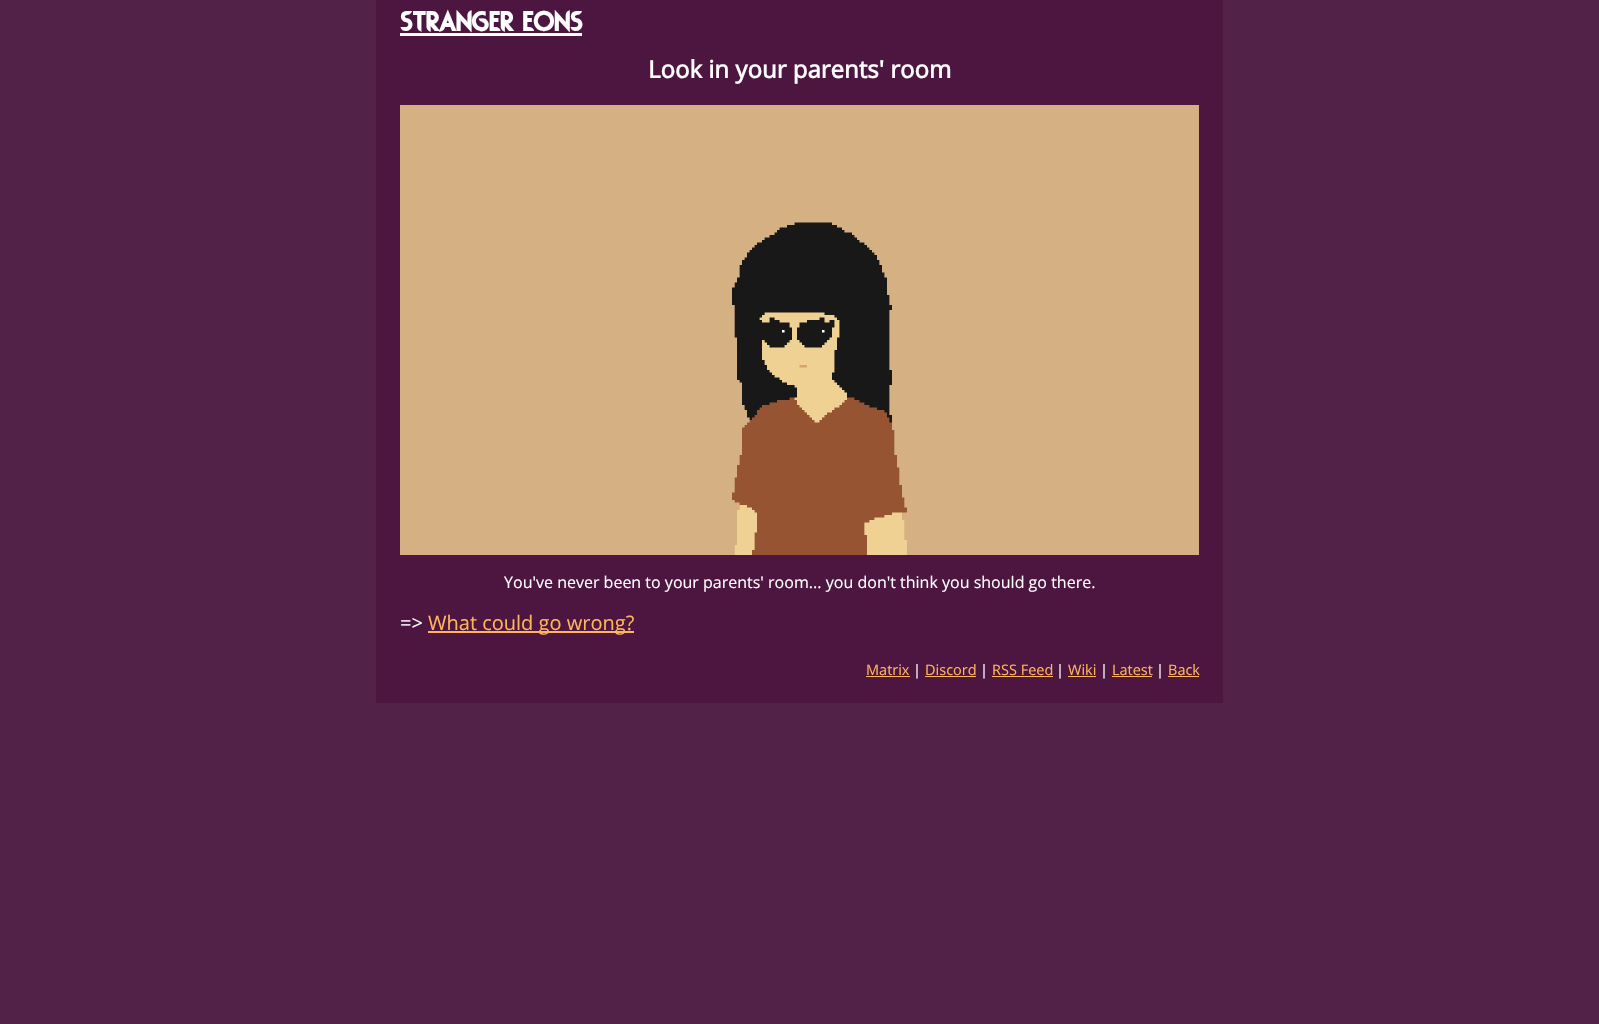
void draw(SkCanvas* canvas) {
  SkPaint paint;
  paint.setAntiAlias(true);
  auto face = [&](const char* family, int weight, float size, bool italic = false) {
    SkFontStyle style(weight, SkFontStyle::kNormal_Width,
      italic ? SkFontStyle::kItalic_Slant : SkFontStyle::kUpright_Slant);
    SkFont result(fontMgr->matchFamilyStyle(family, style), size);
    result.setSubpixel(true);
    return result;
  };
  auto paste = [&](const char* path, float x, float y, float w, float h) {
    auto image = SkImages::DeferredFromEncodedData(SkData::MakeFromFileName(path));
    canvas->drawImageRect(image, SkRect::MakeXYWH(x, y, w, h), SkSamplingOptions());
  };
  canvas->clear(0xff522248);
  paint.setColor(0xff4d1641);
  canvas->drawRect(SkRect::MakeXYWH(376, 0, 847, 703), paint);
  paint.setColor(0xffffffff);
  canvas->drawRect(SkRect::MakeXYWH(400, 33, 182, 3), paint);
  paste("img/1.png", 400, 105, 799, 450);
  {
    const struct { float x, y, w, h; SkColor color; } items[] = {
      {428, 631, 206, 2, 0xffffb659},
      {866, 676, 44, 1, 0xffffb659},
      {925, 676, 51, 1, 0xffffb659},
      {992, 676, 61, 1, 0xffffb659},
      {1068, 676, 28, 1, 0xffffb659},
      {1112, 676, 40, 1, 0xffffb659},
      {1168, 676, 31, 1, 0xffffb659},
    };
    for (auto [x, y, w, h, color] : items) {
      paint.setColor(color);
      canvas->drawRect(SkRect::MakeXYWH(x, y, w, h), paint);
    }
  }
  auto f0 = face("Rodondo", 700, 32);
  paint.setColor(0xffffffff);
  canvas->drawString("STRANGER EONS", 400, 31, f0, paint);
  auto f1 = face("Open Sans", 700, 24);
  canvas->drawString("Look in your parents' room", 648, 78, f1, paint);
  auto f2 = face("Open Sans", 400, 16);
  canvas->drawString("You've never been to your parents' room... you don't think you should go there.", 504, 588, f2, paint);
  auto f3 = face("Open Sans", 400, 20);
  canvas->drawString("=>", 400, 630, f3, paint);
  paint.setColor(0xffffb659);
  canvas->drawString("What could go wrong?", 428, 630, f3, paint);
  auto f4 = face("Open Sans", 400, 14.5f);
  canvas->drawString("Matrix", 866, 675, f4, paint);
  paint.setColor(0xffffffff);
  canvas->drawString("|", 913, 675, f4, paint);
  paint.setColor(0xffffb659);
  canvas->drawString("Discord", 925, 675, f4, paint);
  paint.setColor(0xffffffff);
  canvas->drawString("|", 980, 675, f4, paint);
  paint.setColor(0xffffb659);
  canvas->drawString("RSS Feed", 992, 675, f4, paint);
  paint.setColor(0xffffffff);
  canvas->drawString("|", 1056, 675, f4, paint);
  paint.setColor(0xffffb659);
  canvas->drawString("Wiki", 1068, 675, f4, paint);
  paint.setColor(0xffffffff);
  canvas->drawString("|", 1100, 675, f4, paint);
  paint.setColor(0xffffb659);
  canvas->drawString("Latest", 1112, 675, f4, paint);
  paint.setColor(0xffffffff);
  canvas->drawString("|", 1156, 675, f4, paint);
  paint.setColor(0xffffb659);
  canvas->drawString("Back", 1168, 675, f4, paint);
}
